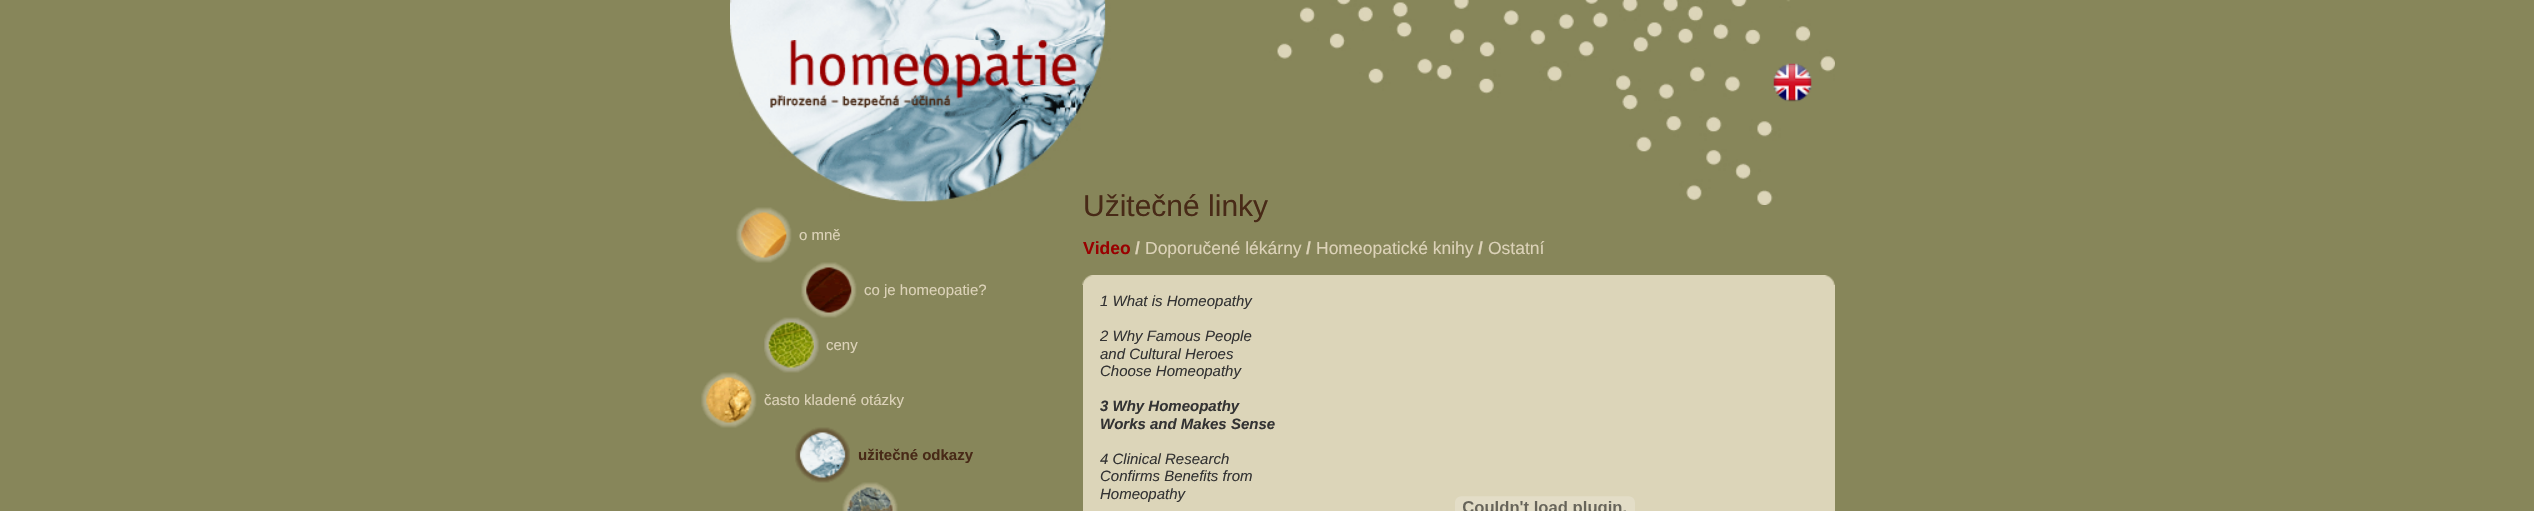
void draw(SkCanvas* canvas) {
  SkPaint paint;
  paint.setAntiAlias(true);
  auto face = [&](const char* family, int weight, float size, bool italic = false) {
    SkFontStyle style(weight, SkFontStyle::kNormal_Width,
      italic ? SkFontStyle::kItalic_Slant : SkFontStyle::kUpright_Slant);
    SkFont result(fontMgr->matchFamilyStyle(family, style), size);
    result.setSubpixel(true);
    return result;
  };
  auto paste = [&](const char* path, float x, float y, float w, float h) {
    auto image = SkImages::DeferredFromEncodedData(SkData::MakeFromFileName(path));
    canvas->drawImageRect(image, SkRect::MakeXYWH(x, y, w, h), SkSamplingOptions());
  };
  canvas->clear(0xff87865a);
  paste("img/1.png", 730, 0, 1105, 205);
  paste("img/2.png", 770, 40, 307, 68);
  paste("img/3.png", 1773, 63, 39, 39);
  paste("img/4.png", 736, 207, 56, 56);
  paste("img/5.png", 801, 262, 56, 56);
  paste("img/6.png", 764, 317, 55, 56);
  paste("img/7.png", 701, 372, 56, 56);
  paste("img/8.png", 795, 427, 55, 56);
  paste("img/9.png", 842, 482, 56, 29);
  paint.setColor(0xffdcd5b9);
  canvas->drawRect(SkRect::MakeXYWH(1083, 285, 752, 226), paint);
  paste("img/10.png", 1082, 275, 753, 10);
  paste("img/11.png", 1455, 496, 180, 15);
  auto f0 = face("Liberation Sans", 400, 15);
  paint.setColor(0xffdcd2b8);
  {
    const struct { const char* s; float x, y; } items[] = {
      {"o mně", 799, 240},
      {"co je homeopatie?", 864, 295},
      {"ceny", 826, 350},
      {"často kladené otázky", 764, 405},
    };
    for (auto [s, x, y] : items) {
      canvas->drawString(s, x, y, f0, paint);
    }
  }
  auto f1 = face("Liberation Sans", 700, 15);
  paint.setColor(0xff482a17);
  canvas->drawString("užitečné odkazy", 858, 460, f1, paint);
  auto f2 = face("Liberation Sans", 400, 30);
  canvas->drawString("Užitečné linky", 1083, 216, f2, paint);
  auto f3 = face("Liberation Sans", 700, 17.5f);
  paint.setColor(0xff990000);
  canvas->drawString("Video", 1083, 254, f3, paint);
  paint.setColor(0xffdcd2b8);
  canvas->drawString("/", 1135, 254, f3, paint);
  auto f4 = face("Liberation Sans", 400, 17.5f);
  canvas->drawString("Doporučené lékárny", 1145, 254, f4, paint);
  canvas->drawString("/", 1306, 254, f3, paint);
  canvas->drawString("Homeopatické knihy", 1316, 254, f4, paint);
  canvas->drawString("/", 1478, 254, f3, paint);
  canvas->drawString("Ostatní", 1488, 254, f4, paint);
  auto f5 = face("Liberation Sans", 400, 15, true);
  paint.setColor(0xff333333);
  {
    const struct { const char* s; float x, y; } items[] = {
      {"1 What is Homeopathy", 1100, 306},
      {"2 Why Famous People", 1100, 341},
      {"and Cultural Heroes", 1100, 359},
      {"Choose Homeopathy", 1100, 376},
    };
    for (auto [s, x, y] : items) {
      canvas->drawString(s, x, y, f5, paint);
    }
  }
  auto f6 = face("Liberation Sans", 700, 15, true);
  canvas->drawString("3 Why Homeopathy", 1100, 411, f6, paint);
  canvas->drawString("Works and Makes Sense", 1100, 429, f6, paint);
  {
    const struct { const char* s; float x, y; } items[] = {
      {"4 Clinical Research", 1100, 464},
      {"Confirms Benefits from", 1100, 481},
      {"Homeopathy", 1100, 499},
    };
    for (auto [s, x, y] : items) {
      canvas->drawString(s, x, y, f5, paint);
    }
  }
}
